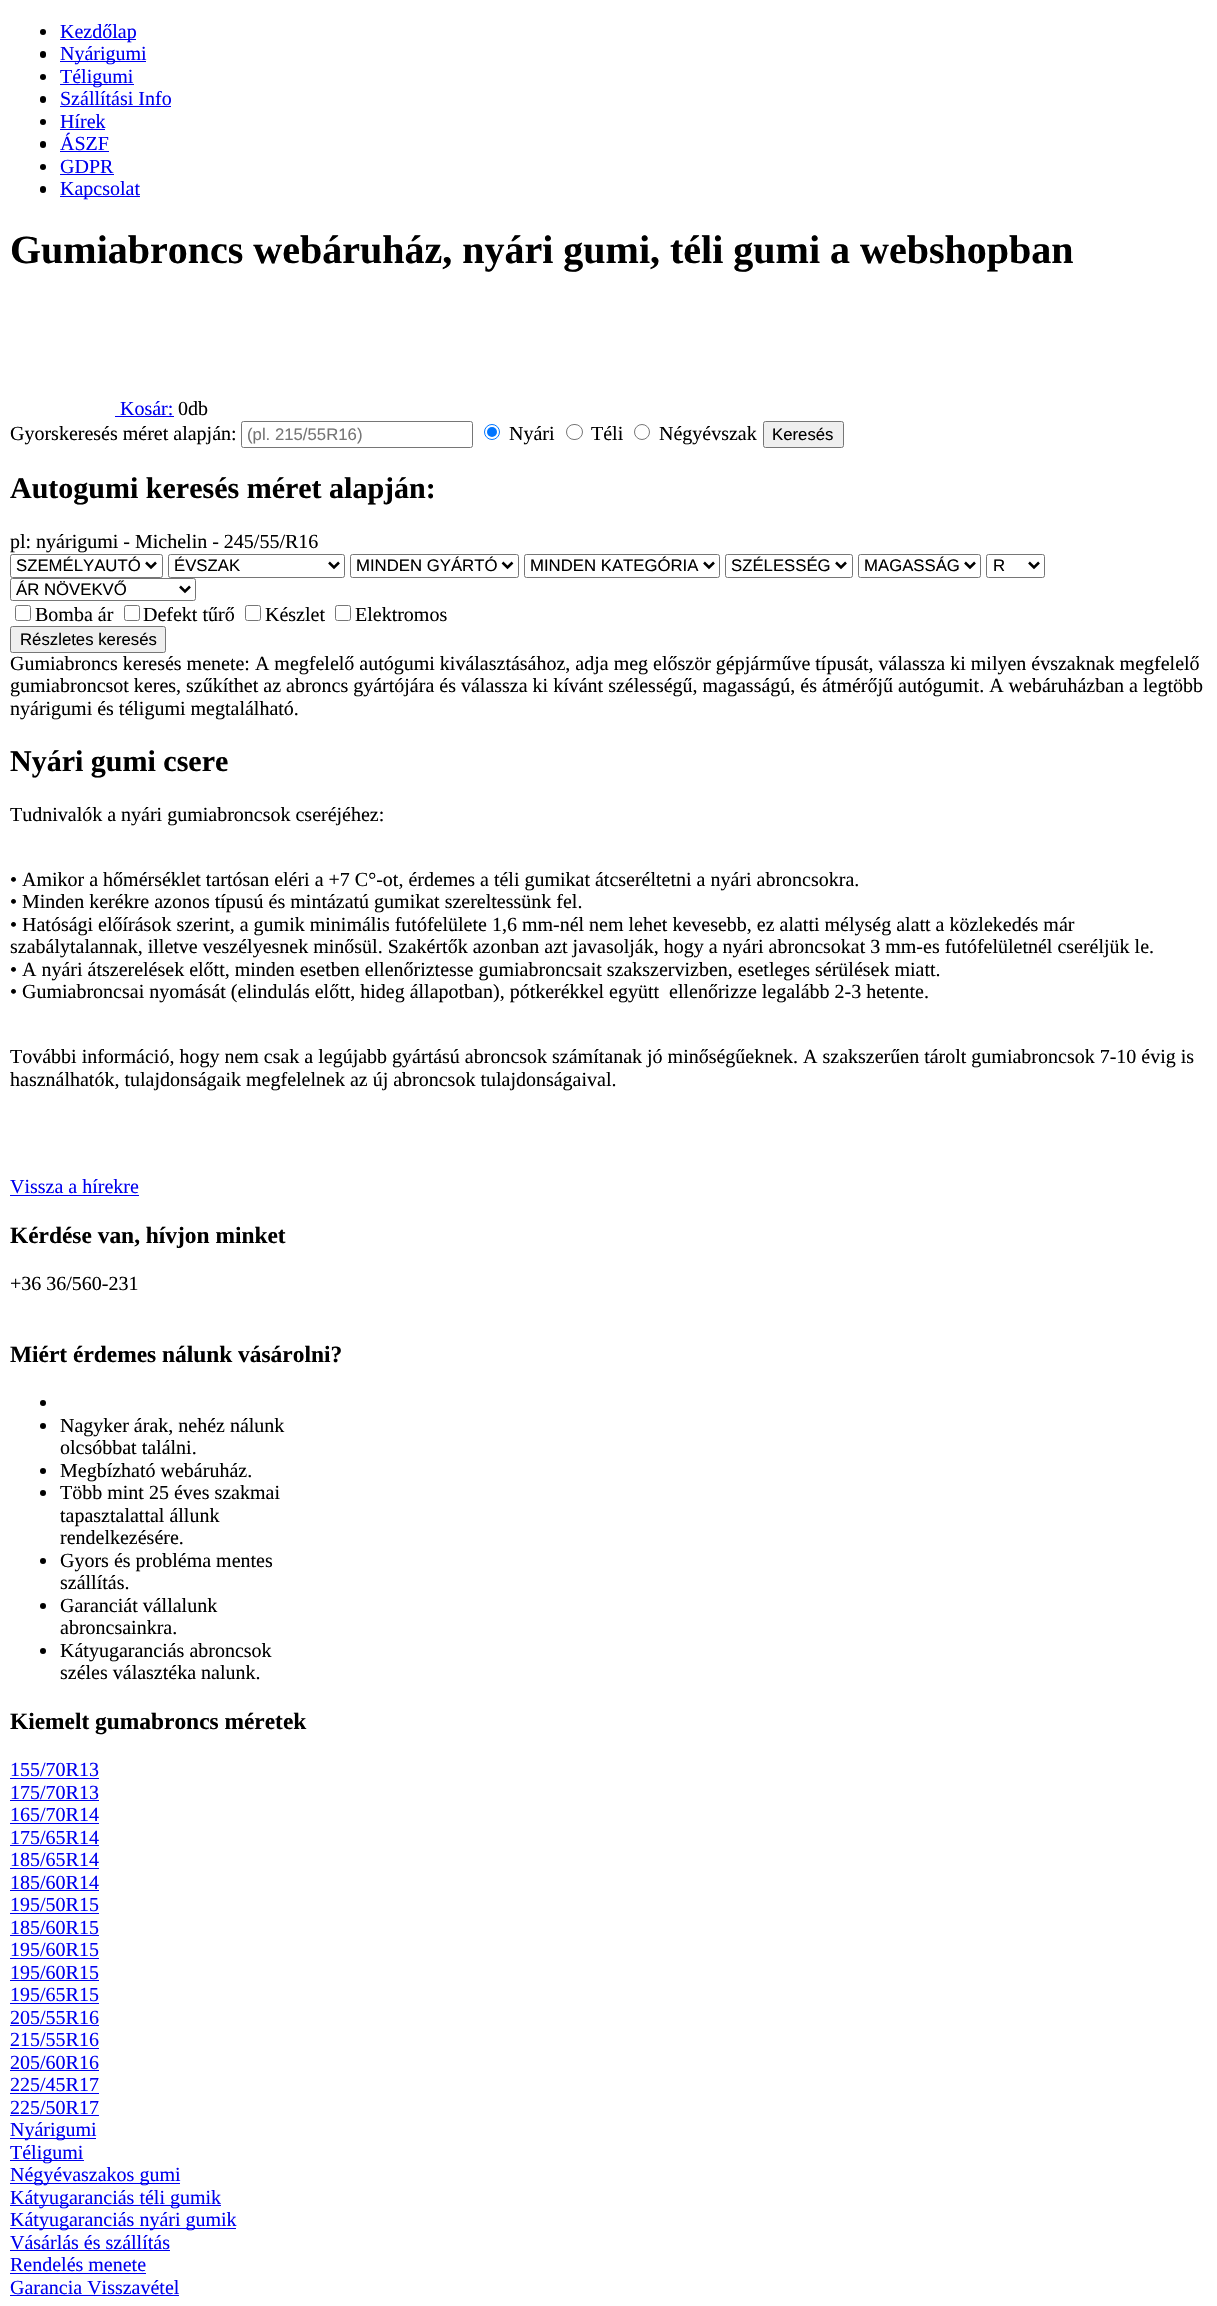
void draw(SkCanvas* canvas) {
  SkPaint paint;
  paint.setAntiAlias(true);
  auto face = [&](const char* family, int weight, float size, bool italic = false) {
    SkFontStyle style(weight, SkFontStyle::kNormal_Width,
      italic ? SkFontStyle::kItalic_Slant : SkFontStyle::kUpright_Slant);
    SkFont result(fontMgr->matchFamilyStyle(family, style), size);
    result.setSubpixel(true);
    return result;
  };
  auto shape = [&](const char* data, bool evenOdd = false) {
    SkPath result = *SkParsePath::FromSVGString(data);
    if (evenOdd) result.setFillType(SkPathFillType::kEvenOdd);
    return result;
  };
  canvas->clear(0xffffffff);
  paint.setColor(0xff000000);
  canvas->drawCircle(43, 32, 3, paint);
  paint.setColor(0xff0000ee);
  canvas->drawRect(SkRect::MakeXYWH(60, 39, 76, 1), paint);
  paint.setColor(0xff000000);
  canvas->drawRoundRect(SkRect::MakeXYWH(40, 51, 6, 7), 3, 3, paint);
  paint.setColor(0xff0000ee);
  canvas->drawRect(SkRect::MakeXYWH(60, 61, 86, 1), paint);
  paint.setColor(0xff000000);
  canvas->drawCircle(43, 77, 3, paint);
  paint.setColor(0xff0000ee);
  canvas->drawRect(SkRect::MakeXYWH(60, 84, 74, 1), paint);
  paint.setColor(0xff000000);
  canvas->drawRoundRect(SkRect::MakeXYWH(40, 96, 6, 7), 3, 3, paint);
  paint.setColor(0xff0000ee);
  canvas->drawRect(SkRect::MakeXYWH(60, 106, 111, 1), paint);
  paint.setColor(0xff000000);
  canvas->drawCircle(43, 122, 3, paint);
  paint.setColor(0xff0000ee);
  canvas->drawRect(SkRect::MakeXYWH(60, 129, 45, 1), paint);
  paint.setColor(0xff000000);
  canvas->drawRoundRect(SkRect::MakeXYWH(40, 141, 6, 7), 3, 3, paint);
  paint.setColor(0xff0000ee);
  canvas->drawRect(SkRect::MakeXYWH(60, 151, 49, 1), paint);
  paint.setColor(0xff000000);
  canvas->drawCircle(43, 167, 3, paint);
  paint.setColor(0xff0000ee);
  canvas->drawRect(SkRect::MakeXYWH(60, 174, 54, 1), paint);
  paint.setColor(0xff000000);
  canvas->drawRoundRect(SkRect::MakeXYWH(40, 186, 6, 7), 3, 3, paint);
  paint.setColor(0xff0000ee);
  canvas->drawRect(SkRect::MakeXYWH(60, 196, 80, 1), paint);
  canvas->drawRect(SkRect::MakeXYWH(115, 416, 59, 1), paint);
  paint.setStroke(true);
  paint.setStrokeWidth(1);
  paint.setColor(0xff767676);
  canvas->drawRoundRect(SkRect::MakeXYWH(241.5f, 421.5f, 231, 26), 2, 2, paint);
  paint.setColor(0xff0075ff);
  canvas->drawCircle(492, 432, 7.5f, paint);
  paint.setStroke(false);
  canvas->drawCircle(492, 432, 5, paint);
  paint.setStroke(true);
  paint.setColor(0xff767676);
  canvas->drawRoundRect(SkRect::MakeXYWH(566.5f, 424.5f, 16, 15), 7.5f, 7.5f, paint);
  canvas->drawCircle(642, 432, 7.5f, paint);
  paint.setStroke(false);
  paint.setColor(0xffefefef);
  canvas->drawRoundRect(SkRect::MakeXYWH(763.5f, 421.5f, 80, 26), 2, 2, paint);
  paint.setStroke(true);
  paint.setColor(0xff767676);
  canvas->drawRoundRect(SkRect::MakeXYWH(763.5f, 421.5f, 80, 26), 2, 2, paint);
  canvas->drawRoundRect(SkRect::MakeXYWH(10.5f, 554.5f, 152, 23), 2, 2, paint);
  paint.setStrokeWidth(2.5f);
  paint.setColor(0xff000000);
  canvas->drawPath(shape("M146 562.5L151 567.5L156 562.5"), paint);
  paint.setStrokeWidth(1);
  paint.setColor(0xff767676);
  canvas->drawRoundRect(SkRect::MakeXYWH(168.5f, 554.5f, 176, 23), 2, 2, paint);
  paint.setStrokeWidth(2.5f);
  paint.setColor(0xff000000);
  canvas->drawPath(shape("M329 562.5L334 567.5L339 562.5"), paint);
  paint.setStrokeWidth(1);
  paint.setColor(0xff767676);
  canvas->drawRoundRect(SkRect::MakeXYWH(350.5f, 554.5f, 168, 23), 2, 2, paint);
  paint.setStrokeWidth(2.5f);
  paint.setColor(0xff000000);
  canvas->drawPath(shape("M502.5 562.5L507.5 567.5L512.5 562.5"), paint);
  paint.setStrokeWidth(1);
  paint.setColor(0xff767676);
  canvas->drawRoundRect(SkRect::MakeXYWH(524.5f, 554.5f, 195, 23), 2, 2, paint);
  paint.setStrokeWidth(2.5f);
  paint.setColor(0xff000000);
  canvas->drawPath(shape("M704 562.5L709 567.5L714 562.5"), paint);
  paint.setStrokeWidth(1);
  paint.setColor(0xff767676);
  canvas->drawRoundRect(SkRect::MakeXYWH(725.5f, 554.5f, 127, 23), 2, 2, paint);
  paint.setStrokeWidth(2.5f);
  paint.setColor(0xff000000);
  canvas->drawPath(shape("M836 562.5L841 567.5L846 562.5"), paint);
  paint.setStrokeWidth(1);
  paint.setColor(0xff767676);
  canvas->drawRoundRect(SkRect::MakeXYWH(858.5f, 554.5f, 122, 23), 2, 2, paint);
  paint.setStrokeWidth(2.5f);
  paint.setColor(0xff000000);
  canvas->drawPath(shape("M965 562.5L970 567.5L975 562.5"), paint);
  paint.setStrokeWidth(1);
  paint.setColor(0xff767676);
  canvas->drawRoundRect(SkRect::MakeXYWH(986.5f, 554.5f, 58, 23), 2, 2, paint);
  paint.setStrokeWidth(2.5f);
  paint.setColor(0xff000000);
  canvas->drawPath(shape("M1029 562.5L1034 567.5L1039 562.5"), paint);
  paint.setStrokeWidth(1);
  paint.setColor(0xff767676);
  canvas->drawRoundRect(SkRect::MakeXYWH(10.5f, 578.5f, 185, 22), 2, 2, paint);
  paint.setStrokeWidth(2.5f);
  paint.setColor(0xff000000);
  canvas->drawPath(shape("M180 586.5L185 591.5L190 586.5"), paint);
  paint.setStrokeWidth(1);
  paint.setColor(0xff767676);
  canvas->drawRoundRect(SkRect::MakeXYWH(15.5f, 605.5f, 15, 15), 2, 2, paint);
  canvas->drawRoundRect(SkRect::MakeXYWH(124.5f, 605.5f, 15, 15), 2, 2, paint);
  canvas->drawRoundRect(SkRect::MakeXYWH(245.5f, 605.5f, 15, 15), 2, 2, paint);
  canvas->drawRoundRect(SkRect::MakeXYWH(335.5f, 605.5f, 15, 15), 2, 2, paint);
  paint.setStroke(false);
  paint.setColor(0xffefefef);
  canvas->drawRoundRect(SkRect::MakeXYWH(10.5f, 626.5f, 155, 26), 2, 2, paint);
  paint.setStroke(true);
  paint.setColor(0xff767676);
  canvas->drawRoundRect(SkRect::MakeXYWH(10.5f, 626.5f, 155, 26), 2, 2, paint);
  paint.setStroke(false);
  paint.setColor(0xff0000ee);
  canvas->drawRect(SkRect::MakeXYWH(10, 1195, 129, 1), paint);
  paint.setColor(0xff000000);
  canvas->drawCircle(43, 1403, 3, paint);
  canvas->drawCircle(43, 1426, 3, paint);
  canvas->drawCircle(43, 1471, 3, paint);
  canvas->drawCircle(43, 1493, 3, paint);
  canvas->drawCircle(43, 1561, 3, paint);
  canvas->drawCircle(43, 1606, 3, paint);
  canvas->drawCircle(43, 1651, 3, paint);
  {
    const struct { float x, y, w, h; SkColor color; } items[] = {
      {10, 1778, 89, 1, 0xff0000ee},
      {10, 1800, 89, 1, 0xff0000ee},
      {10, 1823, 89, 1, 0xff0000ee},
      {10, 1845, 89, 1, 0xff0000ee},
      {10, 1868, 89, 1, 0xff0000ee},
      {10, 1890, 89, 1, 0xff0000ee},
      {10, 1913, 89, 1, 0xff0000ee},
      {10, 1935, 89, 1, 0xff0000ee},
      {10, 1958, 89, 1, 0xff0000ee},
      {10, 1980, 89, 1, 0xff0000ee},
      {10, 2003, 89, 1, 0xff0000ee},
      {10, 2025, 89, 1, 0xff0000ee},
      {10, 2048, 89, 1, 0xff0000ee},
      {10, 2070, 89, 1, 0xff0000ee},
      {10, 2093, 89, 1, 0xff0000ee},
      {10, 2115, 89, 1, 0xff0000ee},
      {10, 2138, 86, 1, 0xff0000ee},
      {10, 2160, 74, 1, 0xff0000ee},
      {10, 2183, 170, 1, 0xff0000ee},
      {10, 2205, 211, 1, 0xff0000ee},
      {10, 2228, 226, 1, 0xff0000ee},
      {10, 2250, 160, 1, 0xff0000ee},
      {10, 2273, 136, 1, 0xff0000ee},
      {10, 2295, 169, 1, 0xff0000ee},
    };
    for (auto [x, y, w, h, color] : items) {
      paint.setColor(color);
      canvas->drawRect(SkRect::MakeXYWH(x, y, w, h), paint);
    }
  }
  auto f0 = face("Liberation Serif", 400, 20);
  {
    const struct { const char* s; float x, y; } items[] = {
      {"Kezdőlap", 60, 38},
      {"Nyárigumi", 60, 60},
      {"Téligumi", 60, 83},
      {"Szállítási Info", 60, 105},
      {"Hírek", 60, 128},
      {"ÁSZF", 60, 150},
      {"GDPR", 60, 173},
      {"Kapcsolat", 60, 195},
    };
    for (auto [s, x, y] : items) {
      canvas->drawString(s, x, y, f0, paint);
    }
  }
  auto f1 = face("Liberation Serif", 700, 40);
  paint.setColor(0xff000000);
  canvas->drawString("Gumiabroncs webáruház, nyári gumi, téli gumi a webshopban", 10, 263, f1, paint);
  paint.setColor(0xff0000ee);
  canvas->drawString("Kosár:", 120, 415, f0, paint);
  paint.setColor(0xff000000);
  canvas->drawString("0db", 178, 415, f0, paint);
  canvas->drawString("Gyorskeresés méret alapján:", 10, 440, f0, paint);
  auto f2 = face("Liberation Sans", 400, 16.75f);
  paint.setColor(0xff757575);
  canvas->drawString("(pl. 215/55R16)", 247, 440, f2, paint);
  paint.setColor(0xff000000);
  {
    const struct { const char* s; float x, y; } items[] = {
      {"Nyári", 509, 440},
      {"Téli", 591, 440},
      {"Négyévszak", 659, 440},
    };
    for (auto [s, x, y] : items) {
      canvas->drawString(s, x, y, f0, paint);
    }
  }
  canvas->drawString("Keresés", 772, 440, f2, paint);
  auto f3 = face("Liberation Serif", 700, 30);
  canvas->drawString("Autogumi keresés méret alapján:", 10, 498, f3, paint);
  canvas->drawString("pl: nyárigumi - Michelin - 245/55/R16", 10, 548, f0, paint);
  {
    const struct { const char* s; float x, y; } items[] = {
      {"SZEMÉLYAUTÓ", 16, 571},
      {"ÉVSZAK", 174, 571},
      {"MINDEN GYÁRTÓ", 356, 571},
      {"MINDEN KATEGÓRIA", 530, 571},
      {"SZÉLESSÉG", 731, 571},
      {"MAGASSÁG", 864, 571},
      {"R", 993, 571},
      {"ÁR NÖVEKVŐ", 16, 595},
    };
    for (auto [s, x, y] : items) {
      canvas->drawString(s, x, y, f2, paint);
    }
  }
  {
    const struct { const char* s; float x, y; } items[] = {
      {"Bomba ár", 35, 621},
      {"Defekt tűrő", 143, 621},
      {"Készlet", 265, 621},
      {"Elektromos", 355, 621},
    };
    for (auto [s, x, y] : items) {
      canvas->drawString(s, x, y, f0, paint);
    }
  }
  canvas->drawString("Részletes keresés", 20, 645, f2, paint);
  {
    const struct { const char* s; float x, y; } items[] = {
      {"Gumiabroncs keresés menete: A megfelelő autógumi kiválasztásához, adja meg először gépjárműve típusát, válassza ki milyen évszaknak megfelelő", 10, 670},
      {"gumiabroncsot keres, szűkíthet az abroncs gyártójára és válassza ki kívánt szélességű, magasságú, és átmérőjű autógumit. A webáruházban a legtöbb", 10, 692},
      {"nyárigumi és téligumi megtalálható.", 10, 715},
    };
    for (auto [s, x, y] : items) {
      canvas->drawString(s, x, y, f0, paint);
    }
  }
  canvas->drawString("Nyári gumi csere", 10, 771, f3, paint);
  {
    const struct { const char* s; float x, y; } items[] = {
      {"Tudnivalók a nyári gumiabroncsok cseréjéhez:", 10, 821},
      {"• Amikor a hőmérséklet tartósan eléri a +7 C°-ot, érdemes a téli gumikat átcseréltetni a nyári abroncsokra.", 10, 886},
      {"• Minden kerékre azonos típusú és mintázatú gumikat szereltessünk fel.", 10, 908},
      {"• Hatósági előírások szerint, a gumik minimális futófelülete 1,6 mm-nél nem lehet kevesebb, ez alatti mélység alatt a közlekedés már", 10, 931},
      {"szabálytalannak, illetve veszélyesnek minősül. Szakértők azonban azt javasolják, hogy a nyári abroncsokat 3 mm-es futófelületnél cseréljük le.", 10, 953},
      {"• A nyári átszerelések előtt, minden esetben ellenőriztesse gumiabroncsait szakszervizben, esetleges sérülések miatt.", 10, 976},
      {"• Gumiabroncsai nyomását (elindulás előtt, hideg állapotban), pótkerékkel együtt  ellenőrizze legalább 2-3 hetente.", 10, 998},
      {"További információ, hogy nem csak a legújabb gyártású abroncsok számítanak jó minőségűeknek. A szakszerűen tárolt gumiabroncsok 7-10 évig is", 10, 1063},
      {"használhatók, tulajdonságaik megfelelnek az új abroncsok tulajdonságaival.", 10, 1086},
    };
    for (auto [s, x, y] : items) {
      canvas->drawString(s, x, y, f0, paint);
    }
  }
  paint.setColor(0xff0000ee);
  canvas->drawString("Vissza a hírekre", 10, 1193, f0, paint);
  auto f4 = face("Liberation Serif", 700, 23.4f);
  paint.setColor(0xff000000);
  canvas->drawString("Kérdése van, hívjon minket", 10, 1243, f4, paint);
  canvas->drawString("+36 36/560-231", 10, 1290, f0, paint);
  canvas->drawString("Miért érdemes nálunk vásárolni?", 10, 1362, f4, paint);
  {
    const struct { const char* s; float x, y; } items[] = {
      {"Nagyker árak, nehéz nálunk", 60, 1432},
      {"olcsóbbat találni.", 60, 1454},
      {"Megbízható webáruház.", 60, 1477},
      {"Több mint 25 éves szakmai", 60, 1499},
      {"tapasztalattal állunk", 60, 1522},
      {"rendelkezésére.", 60, 1544},
      {"Gyors és probléma mentes", 60, 1567},
      {"szállítás.", 60, 1589},
      {"Garanciát vállalunk", 60, 1612},
      {"abroncsainkra.", 60, 1634},
      {"Kátyugaranciás abroncsok", 60, 1657},
      {"széles választéka nalunk.", 60, 1679},
    };
    for (auto [s, x, y] : items) {
      canvas->drawString(s, x, y, f0, paint);
    }
  }
  canvas->drawString("Kiemelt gumabroncs méretek", 10, 1729, f4, paint);
  paint.setColor(0xff0000ee);
  {
    const struct { const char* s; float x, y; } items[] = {
      {"155/70R13", 10, 1776},
      {"175/70R13", 10, 1799},
      {"165/70R14", 10, 1821},
      {"175/65R14", 10, 1844},
      {"185/65R14", 10, 1866},
      {"185/60R14", 10, 1889},
      {"195/50R15", 10, 1911},
      {"185/60R15", 10, 1934},
      {"195/60R15", 10, 1956},
      {"195/60R15", 10, 1979},
      {"195/65R15", 10, 2001},
      {"205/55R16", 10, 2024},
      {"215/55R16", 10, 2046},
      {"205/60R16", 10, 2069},
      {"225/45R17", 10, 2091},
      {"225/50R17", 10, 2114},
      {"Nyárigumi", 10, 2136},
      {"Téligumi", 10, 2159},
      {"Négyévaszakos gumi", 10, 2181},
      {"Kátyugaranciás téli gumik", 10, 2204},
      {"Kátyugaranciás nyári gumik", 10, 2226},
      {"Vásárlás és szállítás", 10, 2249},
      {"Rendelés menete", 10, 2271},
      {"Garancia Visszavétel", 10, 2294},
    };
    for (auto [s, x, y] : items) {
      canvas->drawString(s, x, y, f0, paint);
    }
  }
}
